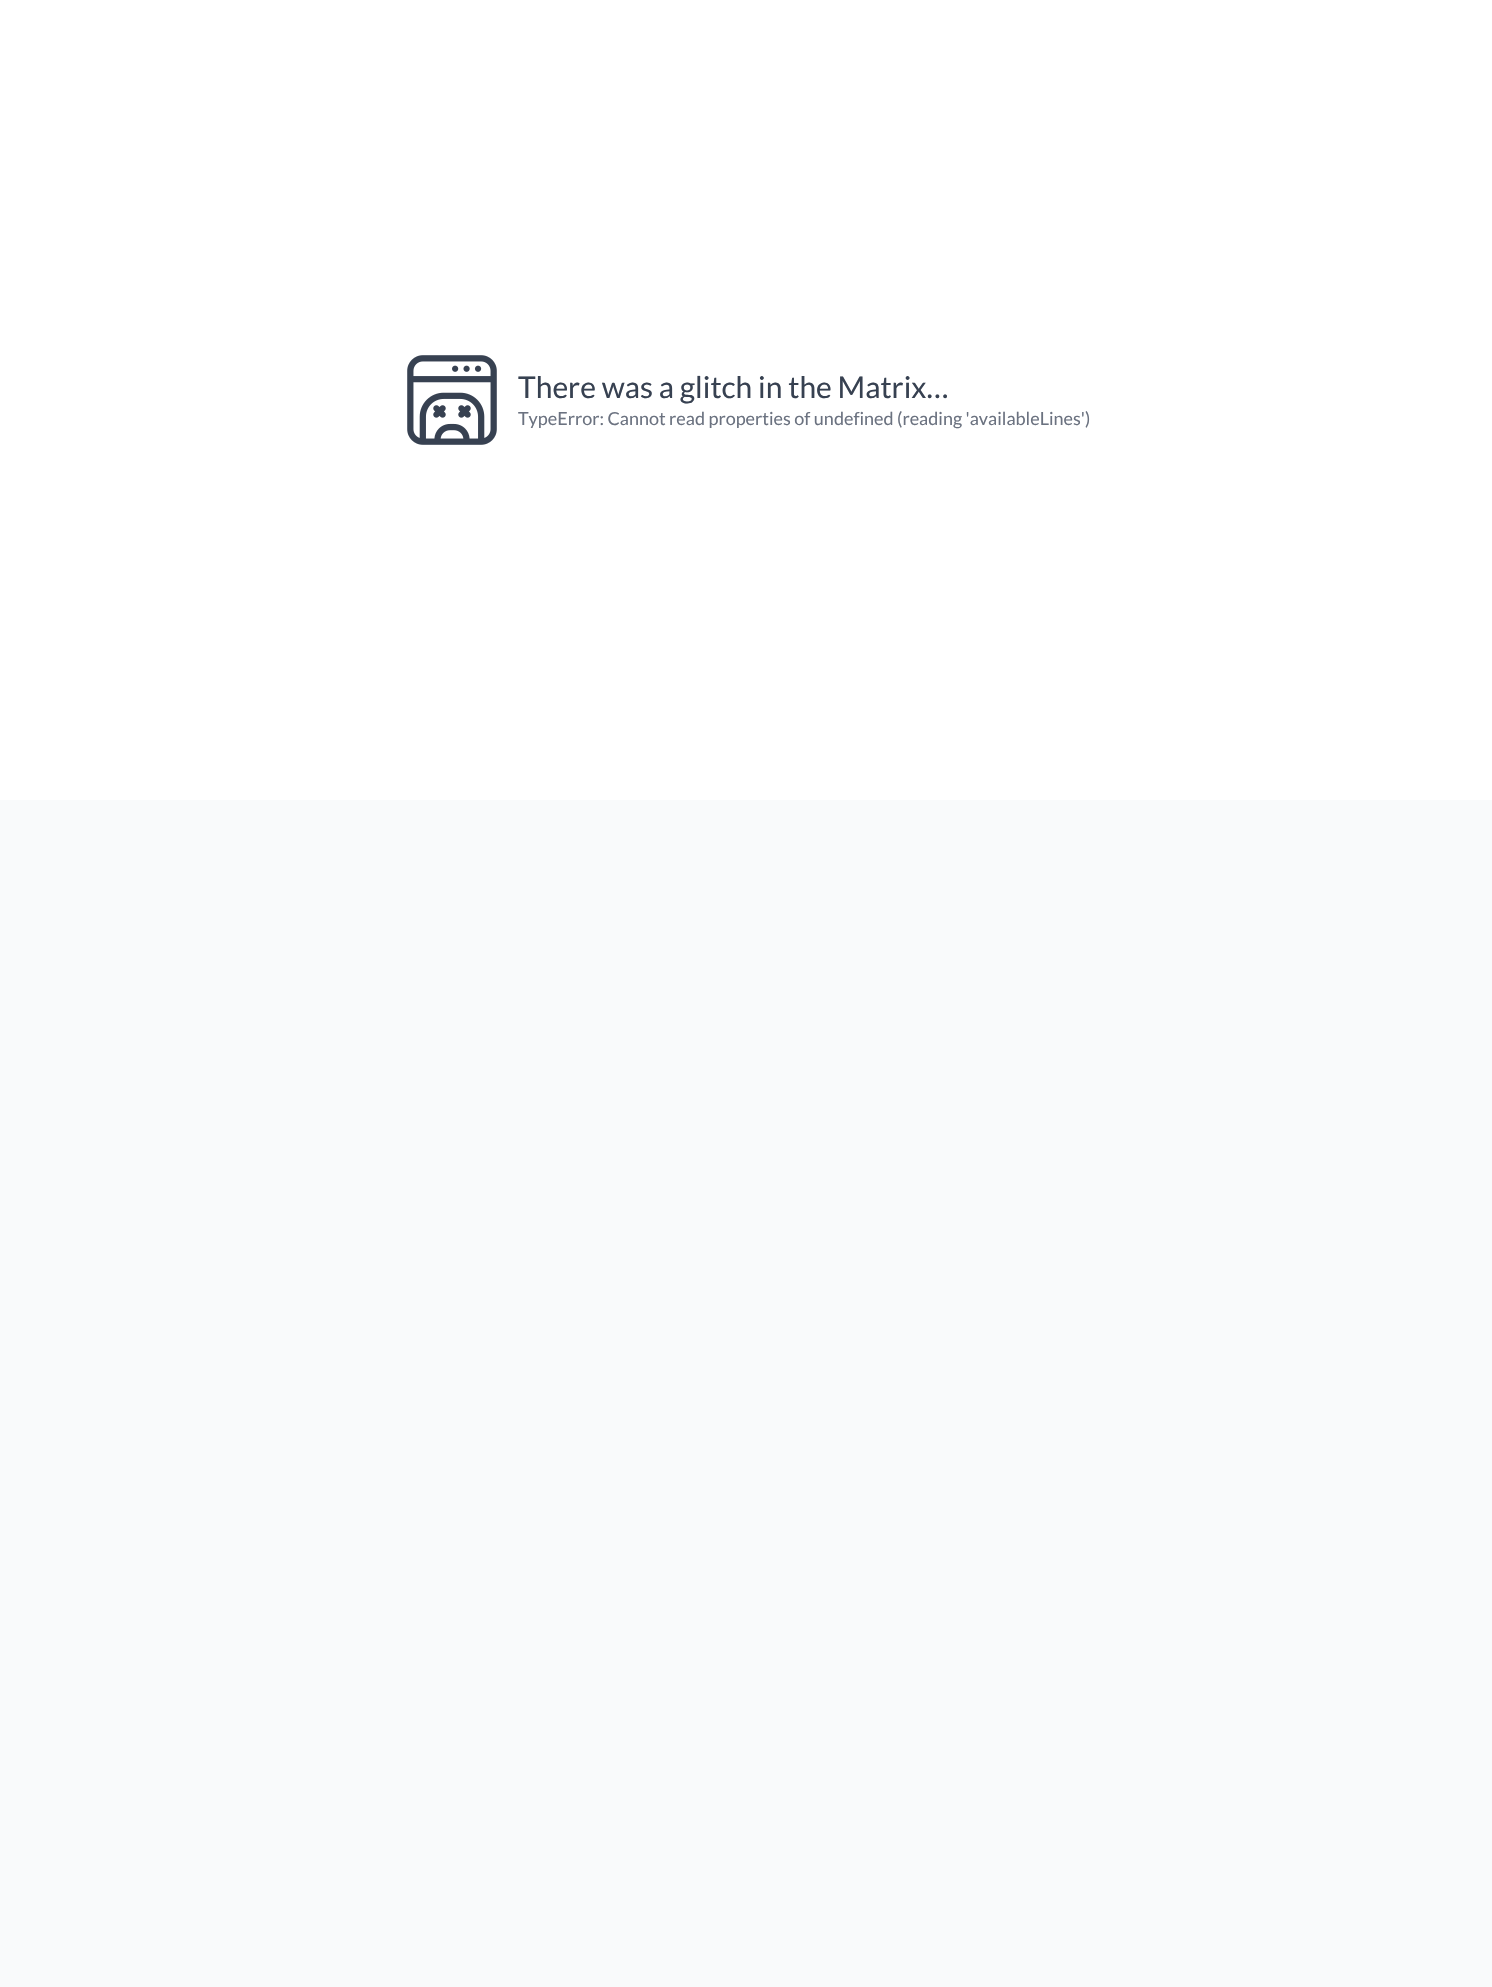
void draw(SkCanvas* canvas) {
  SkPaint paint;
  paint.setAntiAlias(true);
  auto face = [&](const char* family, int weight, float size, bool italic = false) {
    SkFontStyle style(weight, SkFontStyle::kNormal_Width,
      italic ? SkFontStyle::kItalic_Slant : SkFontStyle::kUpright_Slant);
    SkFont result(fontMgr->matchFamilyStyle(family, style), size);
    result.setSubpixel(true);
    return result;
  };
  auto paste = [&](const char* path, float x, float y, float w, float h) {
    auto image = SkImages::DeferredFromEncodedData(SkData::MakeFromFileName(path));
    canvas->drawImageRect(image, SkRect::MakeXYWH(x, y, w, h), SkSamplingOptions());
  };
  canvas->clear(0xfff9fafb);
  paint.setColor(0xffffffff);
  canvas->drawRect(SkRect::MakeXYWH(0, 0, 1492, 800), paint);
  paste("img/1.png", 407, 355, 90, 90);
  auto f0 = face("Lato", 400, 30);
  paint.setColor(0xff374151);
  canvas->drawString("There was a glitch in the Matrix…", 518, 398, f0, paint);
  auto f1 = face("Lato", 400, 18);
  paint.setColor(0xff6b7280);
  canvas->drawString("TypeError: Cannot read properties of undefined (reading 'availableLines')", 518, 425, f1, paint);
}
